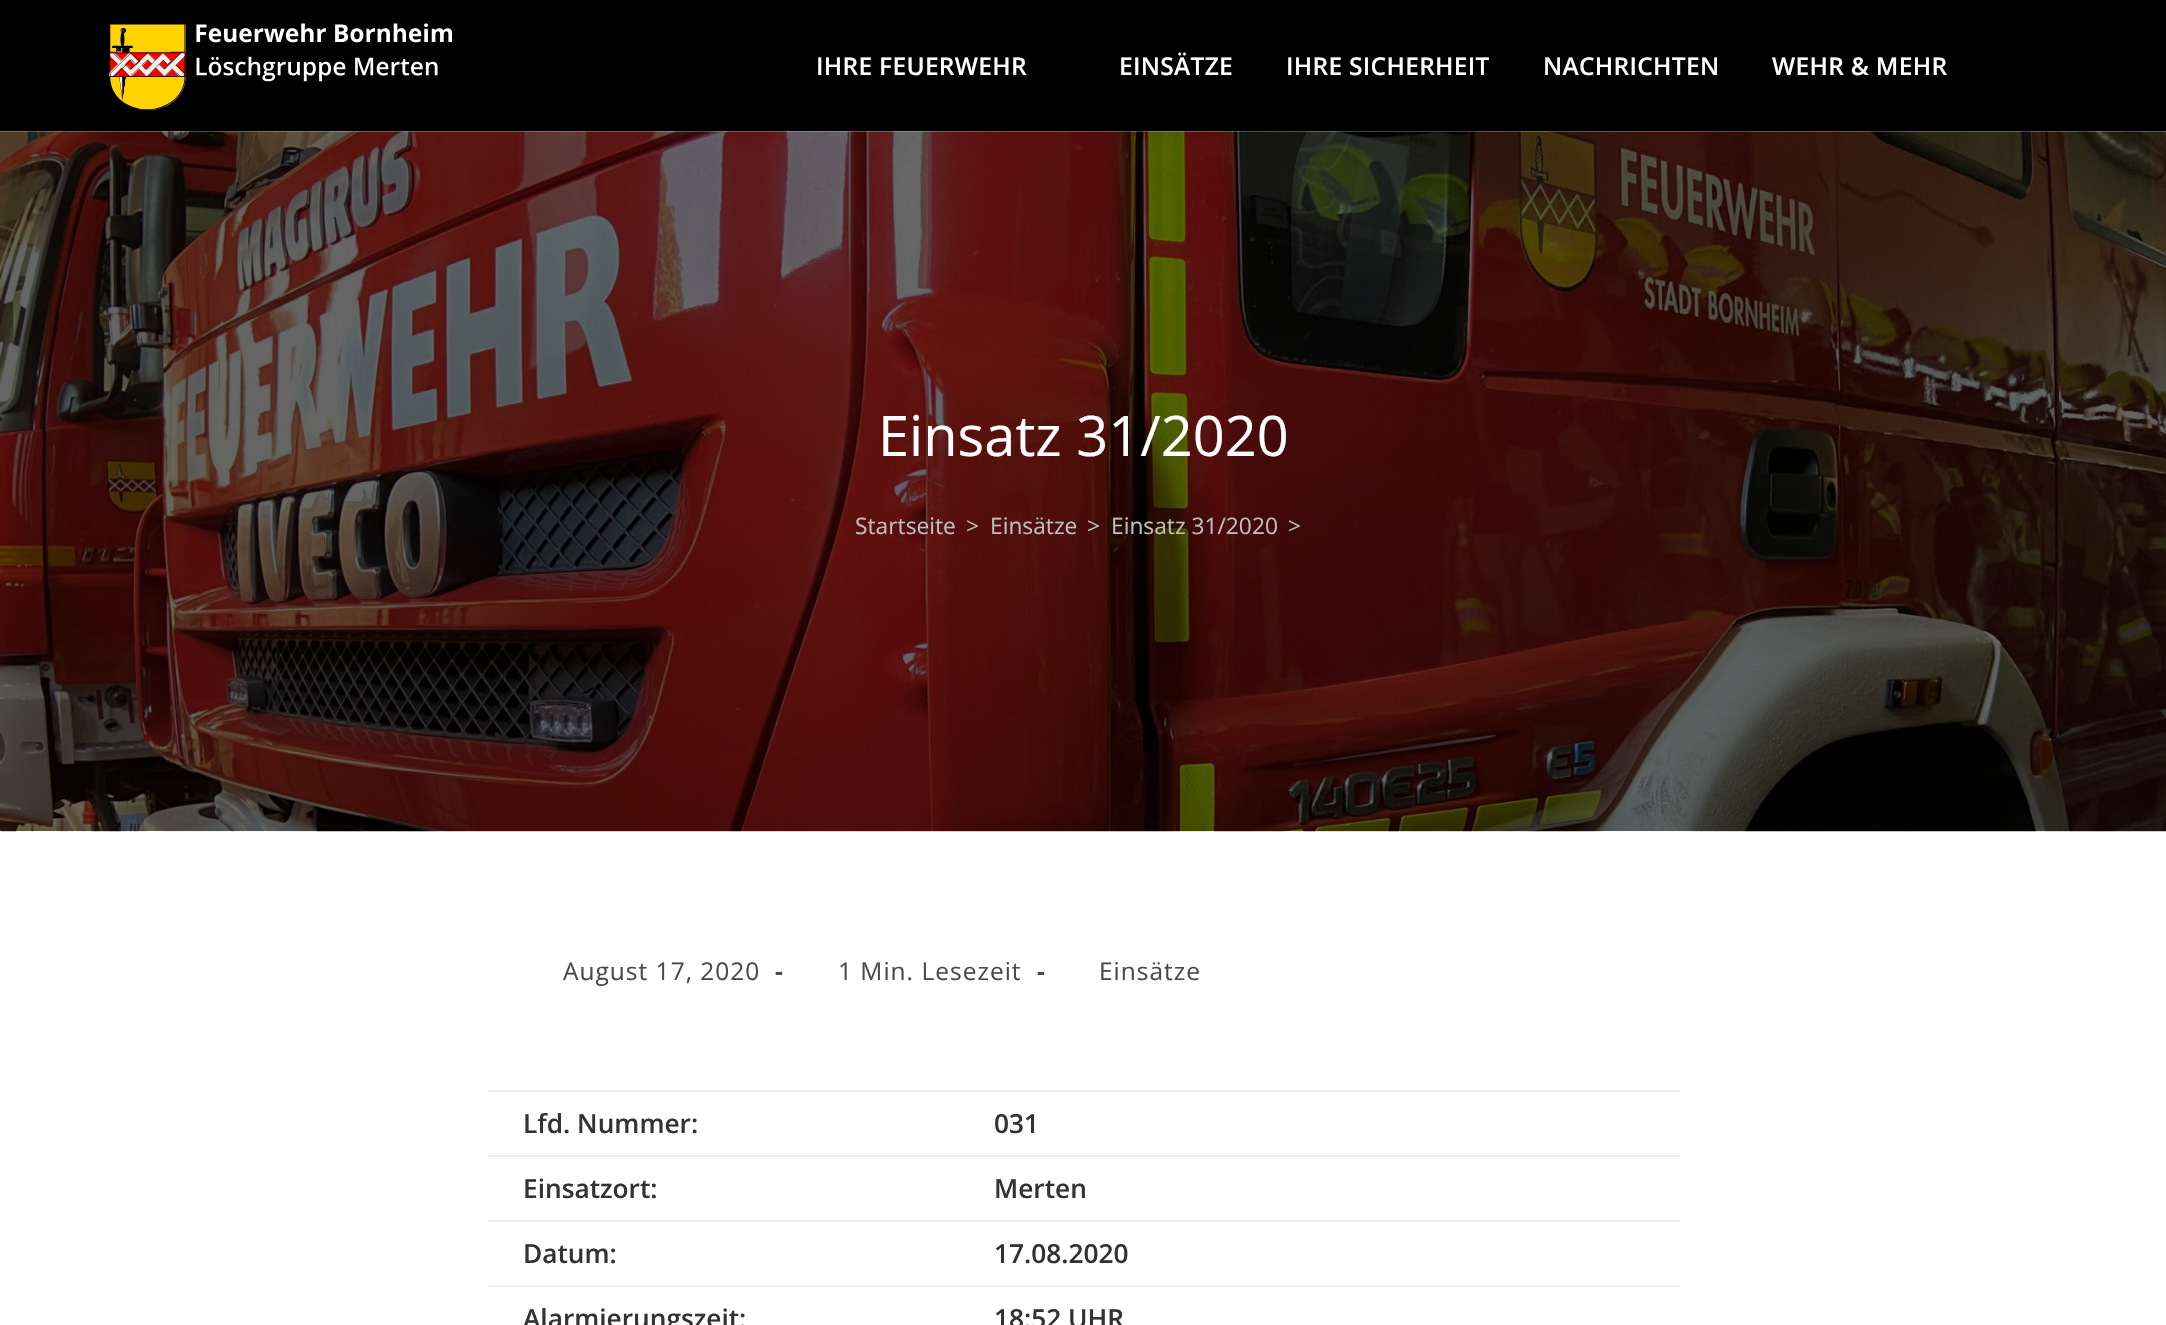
void draw(SkCanvas* canvas) {
  SkPaint paint;
  paint.setAntiAlias(true);
  auto face = [&](const char* family, int weight, float size, bool italic = false) {
    SkFontStyle style(weight, SkFontStyle::kNormal_Width,
      italic ? SkFontStyle::kItalic_Slant : SkFontStyle::kUpright_Slant);
    SkFont result(fontMgr->matchFamilyStyle(family, style), size);
    result.setSubpixel(true);
    return result;
  };
  auto writeSpaced = [&](const char* s, float x, float y, const SkFont& font, const SkPaint& ink, float letter, float word) {
    std::vector<SkGlyphID> glyphs(font.countText(s, strlen(s), SkTextEncoding::kUTF8));
    std::vector<float> xs(glyphs.size());
    font.textToGlyphs(s, strlen(s), SkTextEncoding::kUTF8, glyphs);
    font.getXPos(glyphs, xs, x);
    float extra = 0;
    for (size_t i = 0; i < glyphs.size(); i++) {
      xs[i] += extra;
      extra += letter + word * (glyphs[i] == font.unicharToGlyph(' '));
    }
    canvas->drawTextBlob(SkTextBlob::MakeFromPosHGlyphs(glyphs, xs, y, font), 0, 0, ink);
  };
  auto paste = [&](const char* path, float x, float y, float w, float h) {
    auto image = SkImages::DeferredFromEncodedData(SkData::MakeFromFileName(path));
    canvas->drawImageRect(image, SkRect::MakeXYWH(x, y, w, h), SkSamplingOptions());
  };
  canvas->clear(0xffffffff);
  paint.setColor(0xff000000);
  canvas->drawRect(SkRect::MakeXYWH(0, 0, 2166, 131), paint);
  paste("img/1.png", 109, 23, 344, 87);
  paste("img/2.png", 0, 131, 2166, 701);
  {
    const struct { float x, y, w, h; SkColor color; } items[] = {
      {488, 1090, 1192, 2, 0xffeeeeee},
      {488, 1155, 1192, 2, 0xffeeeeee},
      {488, 1220, 1192, 2, 0xffeeeeee},
      {488, 1285, 1192, 2, 0xffeeeeee},
    };
    for (auto [x, y, w, h, color] : items) {
      paint.setColor(color);
      canvas->drawRect(SkRect::MakeXYWH(x, y, w, h), paint);
    }
  }
  auto f0 = face("Open Sans", 600, 24.5f);
  paint.setColor(0xffffffff);
  {
    const struct { const char* s; float x, y; } items[] = {
      {"IHRE FEUERWEHR", 816, 75},
      {"EINSÄTZE", 1119, 75},
      {"IHRE SICHERHEIT", 1286, 75},
      {"NACHRICHTEN", 1543, 75},
      {"WEHR & MEHR", 1772, 75},
    };
    for (auto [s, x, y] : items) {
      writeSpaced(s, x, y, f0, paint, 0.3f, 0);
    }
  }
  auto f1 = face("Open Sans", 400, 56);
  canvas->drawString("Einsatz 31/2020", 878, 456, f1, paint);
  auto f2 = face("Open Sans", 400, 22.75f);
  paint.setColor(0xffbfbfbf);
  {
    const struct { const char* s; float x, y; } items[] = {
      {"Startseite", 855, 534},
      {">", 966, 534},
      {"Einsätze", 990, 534},
      {">", 1087, 534},
      {"Einsatz 31/2020", 1111, 534},
      {">", 1288, 534},
    };
    for (auto [s, x, y] : items) {
      canvas->drawString(s, x, y, f2, paint);
    }
  }
  auto f3 = face("Open Sans", 400, 24.5f);
  paint.setColor(0xff4a4a4a);
  writeSpaced("August 17, 2020", 563, 980, f3, paint, 1, 0);
  auto f4 = face("Open Sans", 700, 24.5f);
  writeSpaced("-", 775, 980, f4, paint, 1, 0);
  writeSpaced("1 Min. Lesezeit", 838, 980, f3, paint, 1, 0);
  writeSpaced("-", 1037, 980, f4, paint, 1, 0);
  writeSpaced("Einsätze", 1099, 980, f3, paint, 1, 0);
  auto f5 = face("Open Sans", 600, 26.25f);
  paint.setColor(0xff333333);
  {
    const struct { const char* s; float x, y; } items[] = {
      {"Lfd. Nummer:", 523, 1133},
      {"031", 994, 1133},
      {"Einsatzort:", 523, 1198},
      {"Merten", 994, 1198},
      {"Datum:", 523, 1263},
      {"17.08.2020", 994, 1263},
      {"Alarmierungszeit:", 523, 1328},
      {"18:52 UHR", 994, 1328},
    };
    for (auto [s, x, y] : items) {
      canvas->drawString(s, x, y, f5, paint);
    }
  }
}
